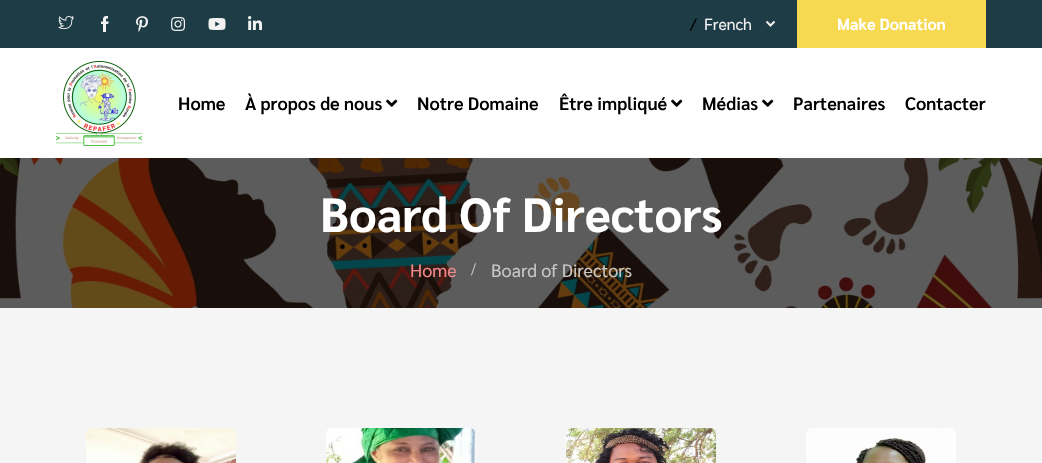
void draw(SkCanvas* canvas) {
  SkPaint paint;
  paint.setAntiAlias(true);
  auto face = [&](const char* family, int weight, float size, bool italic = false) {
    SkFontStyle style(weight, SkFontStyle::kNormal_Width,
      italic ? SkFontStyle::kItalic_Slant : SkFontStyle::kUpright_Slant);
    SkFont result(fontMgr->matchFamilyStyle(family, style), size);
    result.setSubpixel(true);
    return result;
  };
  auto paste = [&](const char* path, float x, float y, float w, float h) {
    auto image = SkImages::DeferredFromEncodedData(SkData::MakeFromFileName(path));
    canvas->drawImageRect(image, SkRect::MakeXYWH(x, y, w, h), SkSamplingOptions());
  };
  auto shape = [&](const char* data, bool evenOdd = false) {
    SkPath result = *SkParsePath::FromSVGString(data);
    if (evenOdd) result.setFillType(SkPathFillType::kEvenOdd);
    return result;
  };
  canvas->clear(0xffffffff);
  paint.setColor(0xff1d3c45);
  canvas->drawRect(SkRect::MakeXYWH(0, 0, 1042, 48), paint);
  paste("img/1.png", 58, 16, 16, 14);
  paste("img/2.png", 101, 16, 8, 16);
  paste("img/3.png", 136, 16, 12, 16);
  paste("img/4.png", 171, 17, 15, 14);
  paste("img/5.png", 208, 18, 18, 12);
  paste("img/6.png", 248, 16, 14, 14);
  paint.setStroke(true);
  paint.setStrokeWidth(2);
  paint.setColor(0xfff1f1f1);
  canvas->drawPath(shape("M766.5 21.5L770.5 25.5L774.5 21.5"), paint);
  paint.setStroke(false);
  paint.setColor(0xfff6d851);
  canvas->drawRect(SkRect::MakeXYWH(797, 0, 189, 48), paint);
  paste("img/7.png", 56, 61, 86, 85);
  paste("img/8.png", 386, 99, 12, 8);
  paste("img/8.png", 671, 99, 12, 8);
  paste("img/8.png", 762, 99, 12, 8);
  paste("img/9.png", 0, 158, 1042, 150);
  paint.setColor(0xfff5f5f5);
  canvas->drawRect(SkRect::MakeXYWH(0, 308, 1042, 155), paint);
  paste("img/10.png", 86, 428, 150, 35);
  paste("img/11.png", 326, 428, 150, 35);
  paste("img/12.png", 566, 428, 150, 35);
  paste("img/13.png", 806, 428, 150, 35);
  auto f0 = face("Sarabun", 400, 16);
  paint.setColor(0xff000000);
  canvas->drawString("/", 690, 30, f0, paint);
  paint.setColor(0xfff1f1f1);
  canvas->drawString("French", 704, 30, f0, paint);
  auto f1 = face("Sarabun", 700, 16);
  paint.setColor(0xffffffff);
  canvas->drawString("Make Donation", 837, 30, f1, paint);
  auto f2 = face("Sarabun", 600, 18);
  paint.setColor(0xff000000);
  {
    const struct { const char* s; float x, y; } items[] = {
      {"Home", 178, 110},
      {"À propos de nous", 245, 110},
      {"Notre Domaine", 417, 110},
      {"Être impliqué", 559, 110},
      {"Médias", 702, 110},
      {"Partenaires", 793, 110},
      {"Contacter", 905, 110},
    };
    for (auto [s, x, y] : items) {
      canvas->drawString(s, x, y, f2, paint);
    }
  }
  auto f3 = face("Sarabun", 700, 48);
  paint.setColor(0xffffffff);
  canvas->drawString("Board Of Directors", 320, 232, f3, paint);
  auto f4 = face("Sarabun", 400, 18);
  paint.setColor(0xfff58789);
  canvas->drawString("Home", 410, 277, f4, paint);
  auto f5 = face("Liberation Serif", 400, 18);
  paint.setColor(0xffcecece);
  canvas->drawString("/", 471, 275, f5, paint);
  paint.setColor(0xffc9c7c4);
  canvas->drawString("Board of Directors", 491, 277, f4, paint);
}
